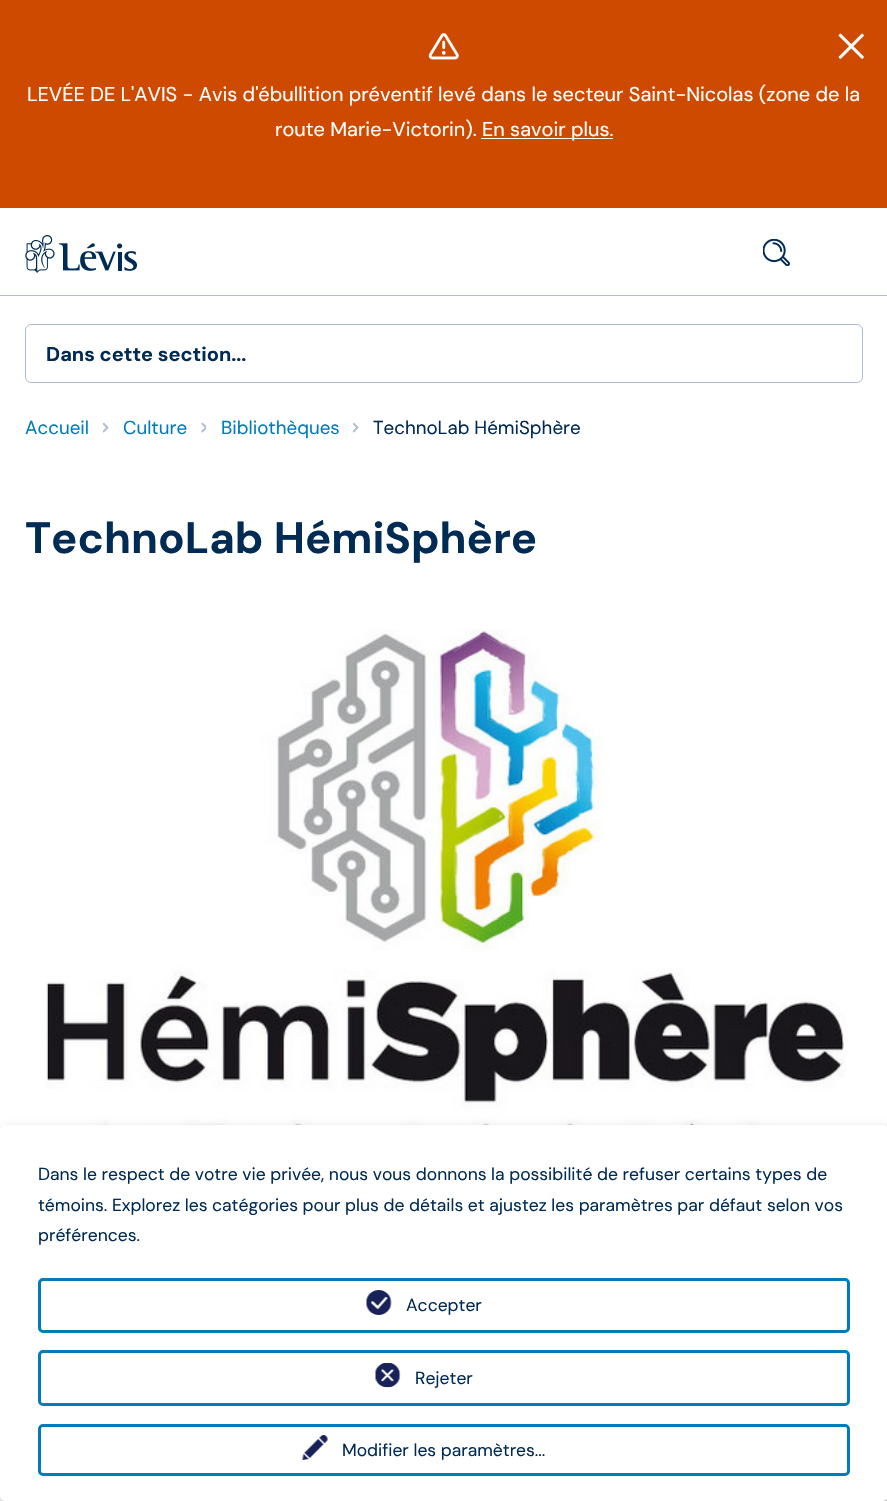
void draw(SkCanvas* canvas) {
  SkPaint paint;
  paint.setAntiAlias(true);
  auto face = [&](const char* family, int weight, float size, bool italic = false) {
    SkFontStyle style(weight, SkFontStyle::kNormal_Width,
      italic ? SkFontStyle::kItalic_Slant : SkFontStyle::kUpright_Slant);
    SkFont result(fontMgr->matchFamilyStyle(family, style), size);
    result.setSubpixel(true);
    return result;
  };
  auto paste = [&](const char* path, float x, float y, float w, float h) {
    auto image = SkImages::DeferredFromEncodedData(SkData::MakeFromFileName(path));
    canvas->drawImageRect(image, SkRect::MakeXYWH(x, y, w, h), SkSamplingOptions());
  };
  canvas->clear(0xffffffff);
  paint.setColor(0xffcd4a00);
  canvas->drawRect(SkRect::MakeXYWH(0, 0, 887, 208), paint);
  paste("img/1.png", 838, 33, 26, 26);
  paste("img/2.png", 428, 33, 31, 27);
  paint.setColor(0xffffffff);
  canvas->drawRect(SkRect::MakeXYWH(481, 138, 132, 1), paint);
  paint.setColor(0xffafbdd2);
  canvas->drawRect(SkRect::MakeXYWH(0, 295, 887, 1), paint);
  paste("img/3.png", 25, 235, 112, 38);
  paste("img/4.png", 763, 239, 27, 27);
  paint.setStroke(true);
  paint.setStrokeWidth(1);
  canvas->drawRoundRect(SkRect::MakeXYWH(25.5f, 324.5f, 837, 58), 5.5f, 5.5f, paint);
  paste("img/5.png", 103, 423, 6, 10);
  paste("img/6.png", 201, 423, 5, 10);
  paste("img/5.png", 353, 423, 6, 10);
  paste("img/7.png", 45, 629, 801, 496);
  paint.setStroke(false);
  paint.setColor(0x30000000);
  paint.setMaskFilter(SkMaskFilter::MakeBlur(kNormal_SkBlurStyle, 6));
  canvas->drawRoundRect(SkRect::MakeXYWH(6, 1131, 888, 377), 5, 5, paint);
  paint.setMaskFilter(nullptr);
  paint.setColor(0x33000000);
  paint.setMaskFilter(SkMaskFilter::MakeBlur(kNormal_SkBlurStyle, 4));
  canvas->drawRoundRect(SkRect::MakeXYWH(0, 1130, 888, 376), 5, 5, paint);
  paint.setMaskFilter(nullptr);
  paint.setColor(0xffffffff);
  canvas->drawRoundRect(SkRect::MakeXYWH(0, 1125, 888, 376), 5, 5, paint);
  paint.setStroke(true);
  paint.setStrokeWidth(3);
  paint.setColor(0xff007db9);
  canvas->drawRoundRect(SkRect::MakeXYWH(39.5f, 1279.5f, 809, 52), 3.5f, 3.5f, paint);
  paste("img/8.png", 366, 1290, 26, 25);
  canvas->drawRoundRect(SkRect::MakeXYWH(39.5f, 1351.5f, 809, 53), 3.5f, 3.5f, paint);
  paste("img/9.png", 375, 1363, 26, 25);
  canvas->drawRoundRect(SkRect::MakeXYWH(39.5f, 1425.5f, 809, 49), 3.5f, 3.5f, paint);
  paste("img/10.png", 302, 1435, 26, 25);
  auto f0 = face("DM Sans", 400, 20);
  paint.setStroke(false);
  paint.setColor(0xffffffff);
  {
    const struct { const char* s; float x, y; } items[] = {
      {"LEVÉE DE L'AVIS - Avis d'ébullition préventif levé dans le secteur Saint-Nicolas (zone de la", 27, 101},
      {"route Marie-Victorin).", 275, 136},
      {"En savoir plus.", 482, 136},
    };
    for (auto [s, x, y] : items) {
      canvas->drawString(s, x, y, f0, paint);
    }
  }
  auto f1 = face("DM Sans", 700, 20);
  paint.setColor(0xff002b54);
  canvas->drawString("Dans cette section...", 46, 361, f1, paint);
  auto f2 = face("DM Sans", 400, 18.75f);
  paint.setColor(0xff007db9);
  {
    const struct { const char* s; float x, y; } items[] = {
      {"Accueil", 25, 434},
      {"Culture", 123, 434},
      {"Bibliothèques", 221, 434},
    };
    for (auto [s, x, y] : items) {
      canvas->drawString(s, x, y, f2, paint);
    }
  }
  paint.setColor(0xff002b54);
  canvas->drawString("TechnoLab HémiSphère", 373, 434, f2, paint);
  auto f3 = face("DM Sans", 700, 43.75f);
  canvas->drawString("TechnoLab HémiSphère", 25, 553, f3, paint);
  auto f4 = face("DM Sans", 400, 17.5f);
  {
    const struct { const char* s; float x, y; } items[] = {
      {"Dans le respect de votre vie privée, nous vous donnons la possibilité de refuser certains types de", 38, 1180},
      {"témoins. Explorez les catégories pour plus de détails et ajustez les paramètres par défaut selon vos", 38, 1211},
      {"préférences.", 38, 1241},
      {"Accepter", 406, 1311},
      {"Rejeter", 415, 1384},
      {"Modifier les paramètres...", 342, 1456},
    };
    for (auto [s, x, y] : items) {
      canvas->drawString(s, x, y, f4, paint);
    }
  }
}
